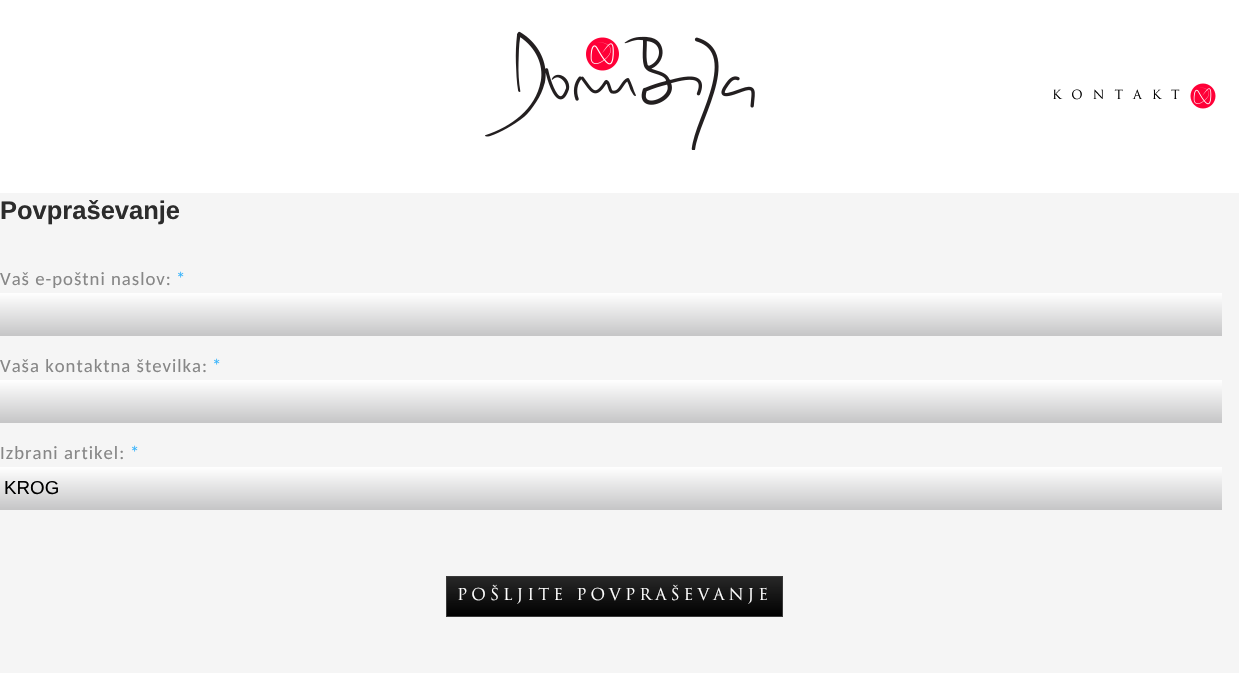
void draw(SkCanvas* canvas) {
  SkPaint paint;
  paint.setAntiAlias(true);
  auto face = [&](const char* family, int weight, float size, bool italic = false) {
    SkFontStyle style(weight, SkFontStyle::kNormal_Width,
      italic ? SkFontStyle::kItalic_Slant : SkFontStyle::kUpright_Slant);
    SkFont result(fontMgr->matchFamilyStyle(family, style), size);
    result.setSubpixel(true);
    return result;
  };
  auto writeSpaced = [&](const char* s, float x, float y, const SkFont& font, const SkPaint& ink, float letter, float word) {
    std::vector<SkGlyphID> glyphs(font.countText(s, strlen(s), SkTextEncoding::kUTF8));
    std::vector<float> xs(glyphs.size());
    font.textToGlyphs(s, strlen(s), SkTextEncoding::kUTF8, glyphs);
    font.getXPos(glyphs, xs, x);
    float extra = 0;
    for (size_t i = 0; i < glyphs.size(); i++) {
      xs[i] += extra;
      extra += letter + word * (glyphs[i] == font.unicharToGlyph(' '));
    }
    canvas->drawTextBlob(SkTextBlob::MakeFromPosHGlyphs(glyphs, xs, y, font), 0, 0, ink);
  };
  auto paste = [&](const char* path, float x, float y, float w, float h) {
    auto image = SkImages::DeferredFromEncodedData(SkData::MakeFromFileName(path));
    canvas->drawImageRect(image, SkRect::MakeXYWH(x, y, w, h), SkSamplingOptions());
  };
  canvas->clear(0xfff5f5f5);
  paint.setColor(0xffffffff);
  canvas->drawRect(SkRect::MakeXYWH(0, 0, 1239, 193), paint);
  paste("img/1.png", 485, 31, 270, 119);
  paste("img/2.png", 1190, 83, 26, 26);
  {
    const SkColor colors[] = {0xffc5c5c6, 0xffffffff};
    const float stops[] = {0, 1};
    const SkPoint ends[] = {{611, 336}, {611, 293}};
    paint.setShader(SkGradientShader::MakeLinear(ends, colors, stops, 2, SkTileMode::kClamp));
    paint.setAlpha(255);
  }
  canvas->drawRect(SkRect::MakeXYWH(0, 293, 1222, 43), paint);
  {
    const SkColor colors[] = {0xffc5c5c6, 0xffffffff};
    const float stops[] = {0, 1};
    const SkPoint ends[] = {{611, 423}, {611, 380}};
    paint.setShader(SkGradientShader::MakeLinear(ends, colors, stops, 2, SkTileMode::kClamp));
    paint.setAlpha(255);
  }
  canvas->drawRect(SkRect::MakeXYWH(0, 380, 1222, 43), paint);
  {
    const SkColor colors[] = {0xffc5c5c6, 0xffffffff};
    const float stops[] = {0, 1};
    const SkPoint ends[] = {{611, 510}, {611, 467}};
    paint.setShader(SkGradientShader::MakeLinear(ends, colors, stops, 2, SkTileMode::kClamp));
    paint.setAlpha(255);
  }
  canvas->drawRect(SkRect::MakeXYWH(0, 467, 1222, 43), paint);
  {
    const SkColor colors[] = {0xff000000, 0xff272727};
    const float stops[] = {0, 1};
    const SkPoint ends[] = {{615, 616}, {615, 577}};
    paint.setShader(SkGradientShader::MakeLinear(ends, colors, stops, 2, SkTileMode::kClamp));
    paint.setAlpha(255);
  }
  canvas->drawRect(SkRect::MakeXYWH(447, 577, 335, 39), paint);
  paint.setStroke(true);
  paint.setStrokeWidth(1);
  paint.setShader(nullptr);
  paint.setColor(0xff393939);
  canvas->drawRect(SkRect::MakeXYWH(446.5f, 576.5f, 336, 40), paint);
  paint.setStroke(false);
  paint.setColor(0xffffffff);
  canvas->drawRect(SkRect::MakeXYWH(0, 673, 1239, 1), paint);
  auto f0 = face("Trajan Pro", 400, 12.4f);
  paint.setColor(0xff000000);
  writeSpaced("KONTAKT", 1052, 99, f0, paint, 10, 0);
  auto f1 = face("Liberation Sans", 700, 25.5f);
  paint.setColor(0xff2c2c2c);
  canvas->drawString("Povpraševanje", 0, 219, f1, paint);
  auto f2 = face("Carlito", 400, 18.75f);
  paint.setColor(0xff878787);
  writeSpaced("Vaš e-poštni naslov:", 0, 285, f2, paint, 1, 0);
  paint.setColor(0xff38b4fc);
  writeSpaced("*", 176, 285, f2, paint, 1, 0);
  paint.setColor(0xff878787);
  writeSpaced("Vaša kontaktna številka:", 0, 372, f2, paint, 1, 0);
  paint.setColor(0xff38b4fc);
  writeSpaced("*", 212, 372, f2, paint, 1, 0);
  paint.setColor(0xff878787);
  writeSpaced("Izbrani artikel:", 0, 459, f2, paint, 1, 0);
  paint.setColor(0xff38b4fc);
  writeSpaced("*", 130, 459, f2, paint, 1, 0);
  auto f3 = face("Liberation Sans", 400, 18.75f);
  paint.setColor(0xff000000);
  canvas->drawString("KROG", 4, 494, f3, paint);
  auto f4 = face("Trajan Pro", 400, 16);
  paint.setColor(0xffffffff);
  writeSpaced("POŠLJITE POVPRAŠEVANJE", 457, 600, f4, paint, 4, 0);
}
